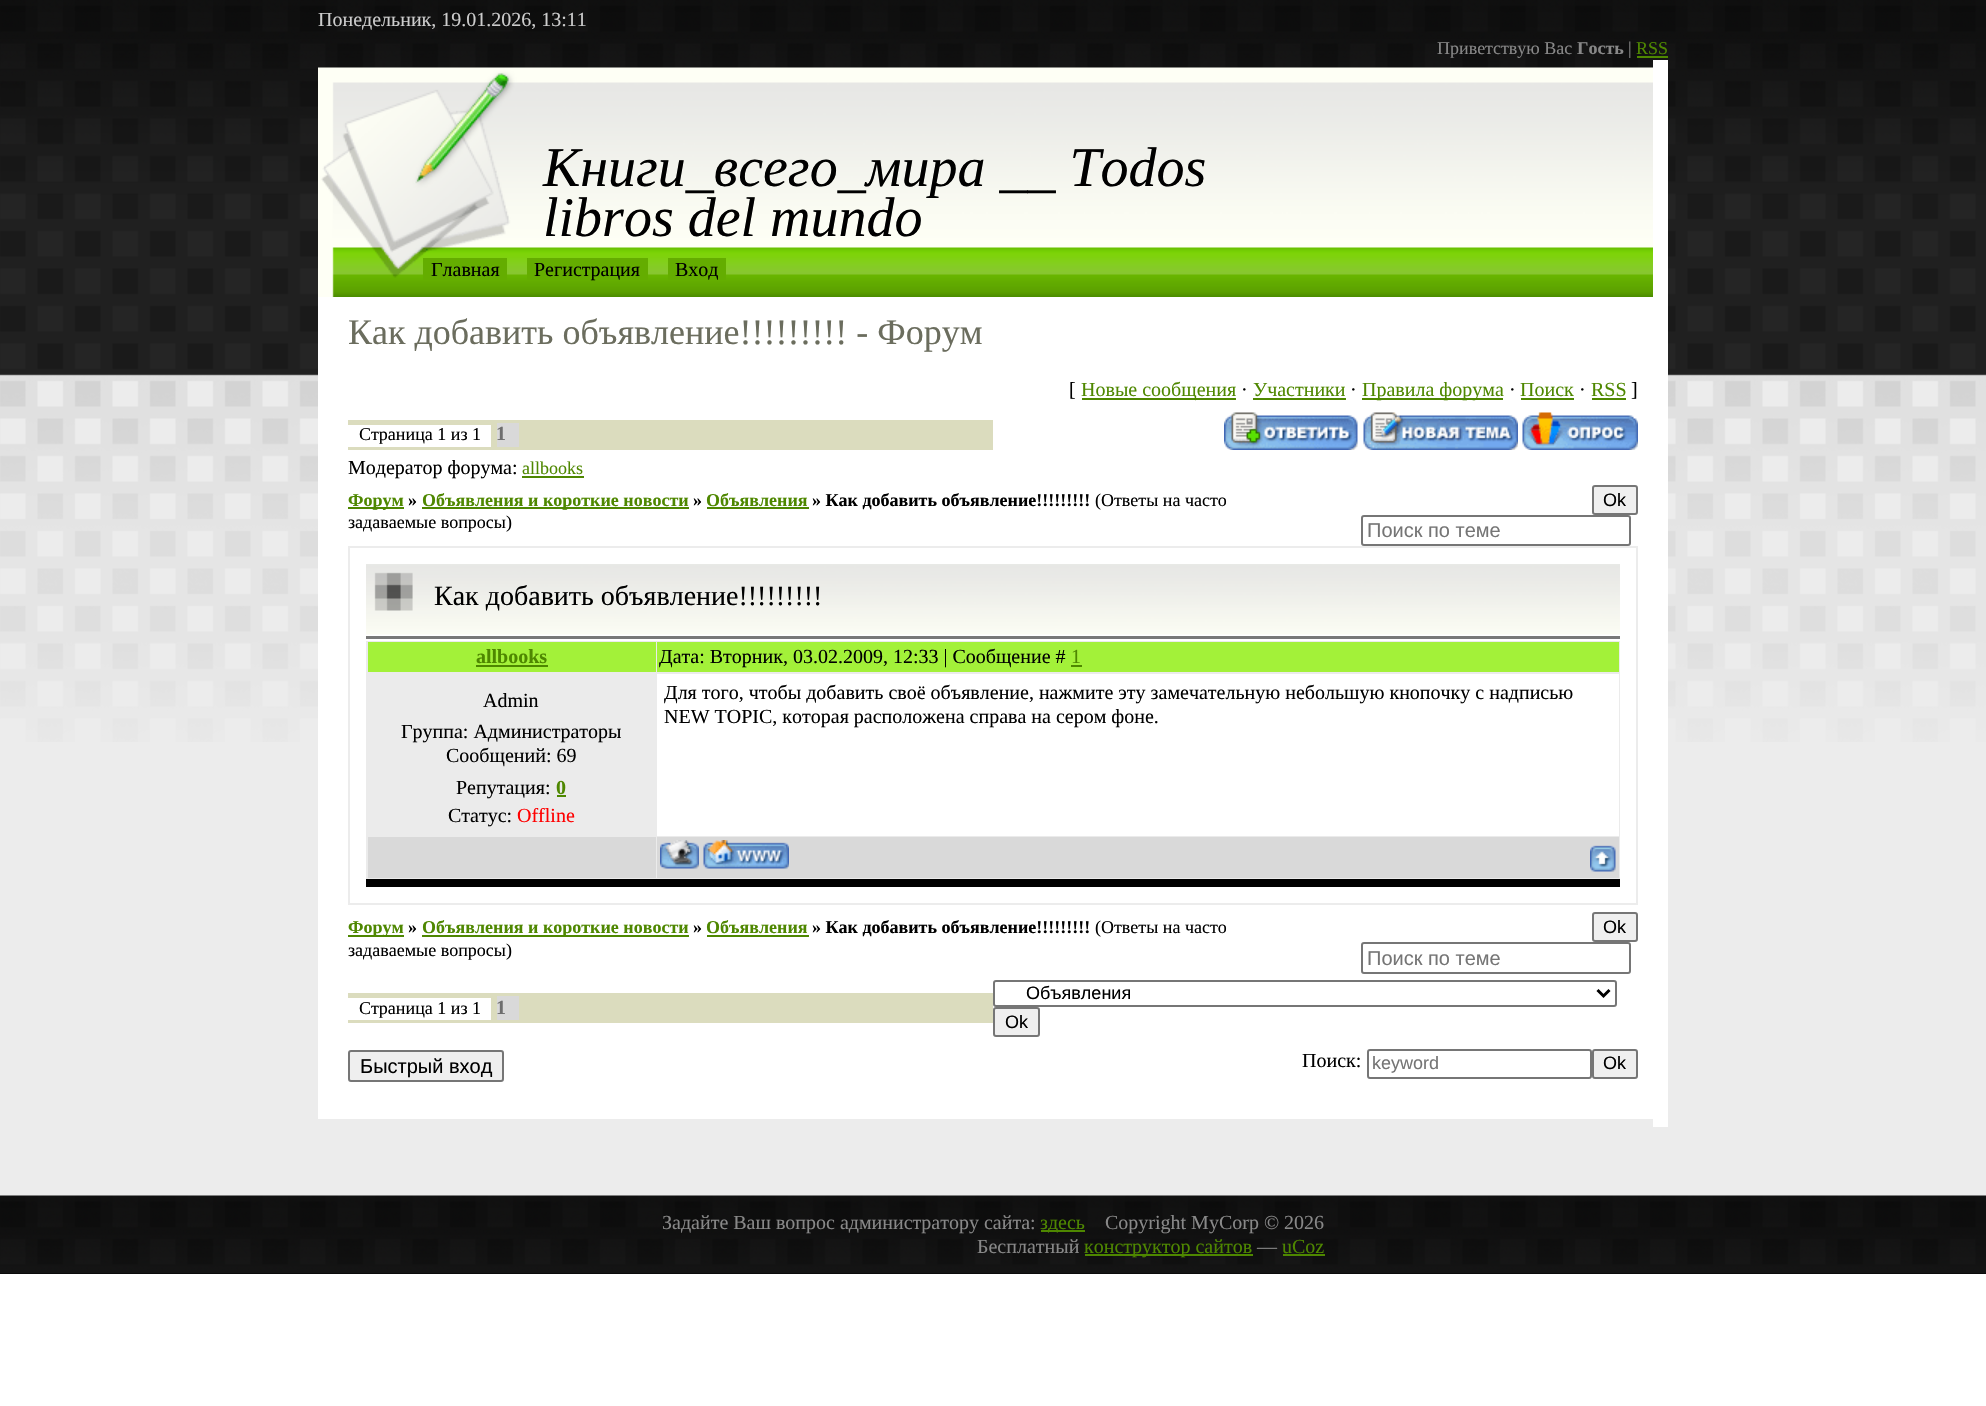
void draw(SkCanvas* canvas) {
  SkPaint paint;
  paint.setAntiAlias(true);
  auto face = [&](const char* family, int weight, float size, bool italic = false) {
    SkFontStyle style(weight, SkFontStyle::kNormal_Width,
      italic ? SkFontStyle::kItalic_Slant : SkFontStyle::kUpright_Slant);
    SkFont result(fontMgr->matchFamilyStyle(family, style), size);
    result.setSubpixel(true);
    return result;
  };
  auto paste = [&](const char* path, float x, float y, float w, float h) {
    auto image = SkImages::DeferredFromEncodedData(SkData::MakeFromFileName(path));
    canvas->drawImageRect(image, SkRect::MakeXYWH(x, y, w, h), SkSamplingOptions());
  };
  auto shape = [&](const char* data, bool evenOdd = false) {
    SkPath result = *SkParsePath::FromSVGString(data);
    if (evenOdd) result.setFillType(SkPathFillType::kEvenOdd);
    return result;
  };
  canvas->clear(0xffffffff);
  paint.setColor(0xffececec);
  canvas->drawRect(SkRect::MakeXYWH(0, 742, 1986, 454), paint);
  paste("img/1.png", 0, 0, 1986, 742);
  {
    const struct { float x, y, w, h; SkColor color; } items[] = {
      {1637, 56, 31, 2, 0xff4e8700},
      {318, 297, 1335, 822, 0xffffffff},
      {1653, 60, 15, 1067, 0xffffffff},
    };
    for (auto [x, y, w, h, color] : items) {
      paint.setColor(color);
      canvas->drawRect(SkRect::MakeXYWH(x, y, w, h), paint);
    }
  }
  paste("img/2.png", 318, 67, 1335, 230);
  {
    const struct { float x, y, w, h; SkColor color; } items[] = {
      {423, 258, 84, 22, 0xff64ad00},
      {527, 258, 121, 22, 0xff64ad00},
      {668, 258, 58, 22, 0xff64ad00},
      {1082, 398, 154, 2, 0xff4e8700},
      {1253, 398, 93, 2, 0xff4e8700},
      {1362, 398, 141, 2, 0xff4e8700},
      {1521, 398, 53, 2, 0xff4e8700},
      {1592, 398, 34, 2, 0xff4e8700},
      {348, 420, 645, 30, 0xffdbdcbe},
      {348, 425, 143, 22, 0xffffffff},
      {497, 423, 22, 24, 0xffd9d9d9},
    };
    for (auto [x, y, w, h, color] : items) {
      paint.setColor(color);
      canvas->drawRect(SkRect::MakeXYWH(x, y, w, h), paint);
    }
  }
  paste("img/3.png", 1224, 412, 134, 38);
  paste("img/4.png", 1363, 412, 155, 38);
  paste("img/5.png", 1522, 412, 116, 38);
  {
    const struct { float x, y, w, h; SkColor color; } items[] = {
      {522, 476, 62, 2, 0xff4e8700},
      {348, 507, 56, 2, 0xff4e8700},
      {422, 507, 267, 2, 0xff4e8700},
      {707, 507, 102, 2, 0xff4e8700},
    };
    for (auto [x, y, w, h, color] : items) {
      paint.setColor(color);
      canvas->drawRect(SkRect::MakeXYWH(x, y, w, h), paint);
    }
  }
  paint.setColor(0xffefefef);
  canvas->drawRoundRect(SkRect::MakeXYWH(1593, 486, 44, 28), 2, 2, paint);
  paint.setStroke(true);
  paint.setStrokeWidth(2);
  paint.setColor(0xff767676);
  canvas->drawRoundRect(SkRect::MakeXYWH(1593, 486, 44, 28), 2, 2, paint);
  canvas->drawRoundRect(SkRect::MakeXYWH(1362, 516, 268, 29), 2, 2, paint);
  paint.setColor(0xffececec);
  canvas->drawRect(SkRect::MakeXYWH(349, 547, 1288, 357), paint);
  paste("img/6.png", 366, 564, 1254, 71);
  paint.setStroke(false);
  {
    const struct { float x, y, w, h; SkColor color; } items[] = {
      {366, 636, 1254, 3, 0xff787878},
      {366, 641, 1254, 238, 0xffebebeb},
      {366, 879, 1254, 8, 0xff000000},
      {368, 642, 288, 30, 0xffa3f139},
      {476, 665, 72, 2, 0xff4e8700},
      {657, 642, 962, 30, 0xffa3f139},
      {1071, 665, 11, 2, 0xff4e8700},
      {557, 795, 9, 2, 0xff4e8700},
      {657, 674, 962, 162, 0xffffffff},
      {368, 837, 288, 41, 0xffd9d9d9},
      {657, 837, 962, 41, 0xffd9d9d9},
    };
    for (auto [x, y, w, h, color] : items) {
      paint.setColor(color);
      canvas->drawRect(SkRect::MakeXYWH(x, y, w, h), paint);
    }
  }
  paste("img/7.png", 660, 840, 39, 29);
  paste("img/8.png", 703, 840, 86, 29);
  paste("img/9.png", 1590, 845, 26, 27);
  {
    const struct { float x, y, w, h; SkColor color; } items[] = {
      {348, 935, 56, 2, 0xff4e8700},
      {422, 935, 267, 2, 0xff4e8700},
      {707, 935, 102, 2, 0xff4e8700},
    };
    for (auto [x, y, w, h, color] : items) {
      paint.setColor(color);
      canvas->drawRect(SkRect::MakeXYWH(x, y, w, h), paint);
    }
  }
  paint.setColor(0xffefefef);
  canvas->drawRoundRect(SkRect::MakeXYWH(1593, 913, 44, 28), 2, 2, paint);
  paint.setStroke(true);
  paint.setColor(0xff767676);
  canvas->drawRoundRect(SkRect::MakeXYWH(1593, 913, 44, 28), 2, 2, paint);
  canvas->drawRoundRect(SkRect::MakeXYWH(1362, 943, 268, 30), 2, 2, paint);
  paint.setStroke(false);
  {
    const struct { float x, y, w, h; SkColor color; } items[] = {
      {348, 993, 645, 30, 0xffdbdcbe},
      {348, 998, 143, 22, 0xffffffff},
      {497, 996, 22, 24, 0xffd9d9d9},
    };
    for (auto [x, y, w, h, color] : items) {
      paint.setColor(color);
      canvas->drawRect(SkRect::MakeXYWH(x, y, w, h), paint);
    }
  }
  paint.setStroke(true);
  paint.setColor(0xff767676);
  canvas->drawRoundRect(SkRect::MakeXYWH(994, 981, 622, 25), 2, 2, paint);
  paint.setStrokeWidth(3);
  paint.setColor(0xff000000);
  canvas->drawPath(shape("M1597.5 990L1603.5 996L1609.5 990"), paint);
  paint.setStroke(false);
  paint.setColor(0xffefefef);
  canvas->drawRoundRect(SkRect::MakeXYWH(994, 1008, 45, 28), 2, 2, paint);
  paint.setStroke(true);
  paint.setStrokeWidth(2);
  paint.setColor(0xff767676);
  canvas->drawRoundRect(SkRect::MakeXYWH(994, 1008, 45, 28), 2, 2, paint);
  paint.setStroke(false);
  paint.setColor(0xffefefef);
  canvas->drawRoundRect(SkRect::MakeXYWH(349, 1051, 154, 30), 2, 2, paint);
  paint.setStroke(true);
  paint.setColor(0xff767676);
  canvas->drawRoundRect(SkRect::MakeXYWH(349, 1051, 154, 30), 2, 2, paint);
  canvas->drawRoundRect(SkRect::MakeXYWH(1368, 1050, 223, 28), 2, 2, paint);
  paint.setStroke(false);
  paint.setColor(0xffefefef);
  canvas->drawRoundRect(SkRect::MakeXYWH(1593, 1050, 44, 28), 2, 2, paint);
  paint.setStroke(true);
  paint.setColor(0xff767676);
  canvas->drawRoundRect(SkRect::MakeXYWH(1593, 1050, 44, 28), 2, 2, paint);
  paint.setStroke(false);
  paint.setColor(0xff000000);
  canvas->drawRect(SkRect::MakeXYWH(0, 1273, 1986, 1), paint);
  paste("img/10.png", 0, 1195, 1986, 79);
  {
    const struct { float x, y, w, h; SkColor color; } items[] = {
      {1041, 1230, 44, 2, 0xff4e8700},
      {1085, 1254, 168, 2, 0xff4e8700},
      {1283, 1254, 42, 2, 0xff4e8700},
    };
    for (auto [x, y, w, h, color] : items) {
      paint.setColor(color);
      canvas->drawRect(SkRect::MakeXYWH(x, y, w, h), paint);
    }
  }
  auto f0 = face("Liberation Serif", 400, 20);
  paint.setColor(0xffcccccc);
  canvas->drawString("Понедельник, 19.01.2026, 13:11", 318, 26, f0, paint);
  auto f1 = face("Liberation Serif", 400, 18);
  paint.setColor(0xff888888);
  canvas->drawString("Приветствую Вас", 1437, 54, f1, paint);
  auto f2 = face("Liberation Serif", 700, 18);
  canvas->drawString("Гость", 1577, 54, f2, paint);
  canvas->drawString("|", 1628, 54, f1, paint);
  paint.setColor(0xff4e8700);
  canvas->drawString("RSS", 1636, 54, f1, paint);
  auto f3 = face("Liberation Serif", 400, 56, true);
  paint.setColor(0xff000000);
  canvas->drawString("Книги_всего_мира __ Todos", 543, 186, f3, paint);
  canvas->drawString("libros del mundo", 543, 236, f3, paint);
  {
    const struct { const char* s; float x, y; } items[] = {
      {"Главная", 431, 276},
      {"Регистрация", 534, 276},
      {"Вход", 675, 276},
    };
    for (auto [s, x, y] : items) {
      canvas->drawString(s, x, y, f0, paint);
    }
  }
  auto f4 = face("Liberation Serif", 400, 36);
  paint.setColor(0xff6b6d5e);
  canvas->drawString("Как добавить объявление!!!!!!!!! - Форум", 348, 344, f4, paint);
  paint.setColor(0xff000000);
  canvas->drawString("[", 1069, 396, f0, paint);
  paint.setColor(0xff4e8700);
  canvas->drawString("Новые сообщения", 1081, 396, f0, paint);
  paint.setColor(0xff000000);
  canvas->drawString("·", 1241, 396, f0, paint);
  paint.setColor(0xff4e8700);
  canvas->drawString("Участники", 1253, 396, f0, paint);
  paint.setColor(0xff000000);
  canvas->drawString("·", 1350, 396, f0, paint);
  paint.setColor(0xff4e8700);
  canvas->drawString("Правила форума", 1362, 396, f0, paint);
  paint.setColor(0xff000000);
  canvas->drawString("·", 1509, 396, f0, paint);
  paint.setColor(0xff4e8700);
  canvas->drawString("Поиск", 1520, 396, f0, paint);
  paint.setColor(0xff000000);
  canvas->drawString("·", 1579, 396, f0, paint);
  paint.setColor(0xff4e8700);
  canvas->drawString("RSS", 1591, 396, f0, paint);
  paint.setColor(0xff000000);
  canvas->drawString("]", 1631, 396, f0, paint);
  canvas->drawString("Страница 1 из 1", 359, 440, f1, paint);
  auto f5 = face("Liberation Serif", 700, 20);
  paint.setColor(0xff6e6e6e);
  canvas->drawString("1", 496, 440, f5, paint);
  paint.setColor(0xff000000);
  canvas->drawString("Модератор форума:", 348, 474, f0, paint);
  paint.setColor(0xff4e8700);
  canvas->drawString("allbooks", 522, 474, f1, paint);
  canvas->drawString("Форум", 348, 506, f2, paint);
  paint.setColor(0xff000000);
  canvas->drawString("»", 408, 506, f2, paint);
  paint.setColor(0xff4e8700);
  canvas->drawString("Объявления и короткие новости", 422, 506, f2, paint);
  paint.setColor(0xff000000);
  canvas->drawString("»", 693, 506, f2, paint);
  paint.setColor(0xff4e8700);
  canvas->drawString("Объявления", 706, 506, f2, paint);
  paint.setColor(0xff000000);
  canvas->drawString("» Как добавить объявление!!!!!!!!!", 812, 506, f2, paint);
  canvas->drawString("(Ответы на часто", 1095, 506, f1, paint);
  canvas->drawString("задаваемые вопросы)", 348, 528, f1, paint);
  auto f6 = face("Liberation Sans", 400, 18);
  canvas->drawString("Ok", 1603, 506, f6, paint);
  auto f7 = face("Liberation Sans", 400, 20);
  paint.setColor(0xff757575);
  canvas->drawString("Поиск по теме", 1367, 537, f7, paint);
  auto f8 = face("Liberation Serif", 400, 28);
  paint.setColor(0xff000000);
  canvas->drawString("Как добавить объявление!!!!!!!!!", 434, 605, f8, paint);
  paint.setColor(0xff4e8700);
  canvas->drawString("allbooks", 476, 663, f5, paint);
  paint.setColor(0xff000000);
  canvas->drawString("Дата: Вторник, 03.02.2009, 12:33 | Сообщение #", 659, 663, f0, paint);
  paint.setColor(0xff4e8700);
  canvas->drawString("1", 1071, 663, f0, paint);
  paint.setColor(0xff000000);
  {
    const struct { const char* s; float x, y; } items[] = {
      {"Admin", 483, 707},
      {"Группа: Администраторы", 401, 738},
      {"Сообщений: 69", 446, 762},
      {"Репутация:", 456, 794},
    };
    for (auto [s, x, y] : items) {
      canvas->drawString(s, x, y, f0, paint);
    }
  }
  paint.setColor(0xff4e8700);
  canvas->drawString("0", 556, 794, f5, paint);
  paint.setColor(0xff000000);
  canvas->drawString("Статус:", 448, 822, f0, paint);
  paint.setColor(0xffff0000);
  canvas->drawString("Offline", 517, 822, f0, paint);
  paint.setColor(0xff000000);
  canvas->drawString("Для того, чтобы добавить своё объявление, нажмите эту замечательную небольшую кнопочку с надписью", 664, 699, f0, paint);
  canvas->drawString("NEW TOPIC, которая расположена справа на сером фоне.", 664, 723, f0, paint);
  paint.setColor(0xff4e8700);
  canvas->drawString("Форум", 348, 933, f2, paint);
  paint.setColor(0xff000000);
  canvas->drawString("»", 408, 933, f2, paint);
  paint.setColor(0xff4e8700);
  canvas->drawString("Объявления и короткие новости", 422, 933, f2, paint);
  paint.setColor(0xff000000);
  canvas->drawString("»", 693, 933, f2, paint);
  paint.setColor(0xff4e8700);
  canvas->drawString("Объявления", 706, 933, f2, paint);
  paint.setColor(0xff000000);
  canvas->drawString("» Как добавить объявление!!!!!!!!!", 812, 933, f2, paint);
  canvas->drawString("(Ответы на часто", 1095, 933, f1, paint);
  canvas->drawString("задаваемые вопросы)", 348, 956, f1, paint);
  canvas->drawString("Ok", 1603, 933, f6, paint);
  paint.setColor(0xff757575);
  canvas->drawString("Поиск по теме", 1367, 965, f7, paint);
  paint.setColor(0xff000000);
  canvas->drawString("Страница 1 из 1", 359, 1014, f1, paint);
  paint.setColor(0xff6e6e6e);
  canvas->drawString("1", 496, 1014, f5, paint);
  paint.setColor(0xff000000);
  canvas->drawString("Объявления", 1026, 999, f6, paint);
  canvas->drawString("Ok", 1005, 1028, f6, paint);
  canvas->drawString("Быстрый вход", 360, 1073, f7, paint);
  canvas->drawString("Поиск:", 1302, 1067, f0, paint);
  paint.setColor(0xff757575);
  canvas->drawString("keyword", 1372, 1069, f6, paint);
  paint.setColor(0xff000000);
  canvas->drawString("Ok", 1603, 1069, f6, paint);
  paint.setColor(0xff888888);
  canvas->drawString("Задайте Ваш вопрос администратору сайта:", 662, 1229, f0, paint);
  paint.setColor(0xff4e8700);
  canvas->drawString("здесь", 1040, 1229, f0, paint);
  paint.setColor(0xff888888);
  canvas->drawString("Copyright MyCorp © 2026", 1105, 1229, f0, paint);
  canvas->drawString("Бесплатный", 977, 1253, f0, paint);
  paint.setColor(0xff4e8700);
  canvas->drawString("конструктор сайтов", 1084, 1253, f0, paint);
  paint.setColor(0xff888888);
  canvas->drawString("—", 1257, 1253, f0, paint);
  paint.setColor(0xff4e8700);
  canvas->drawString("uCoz", 1282, 1253, f0, paint);
}
